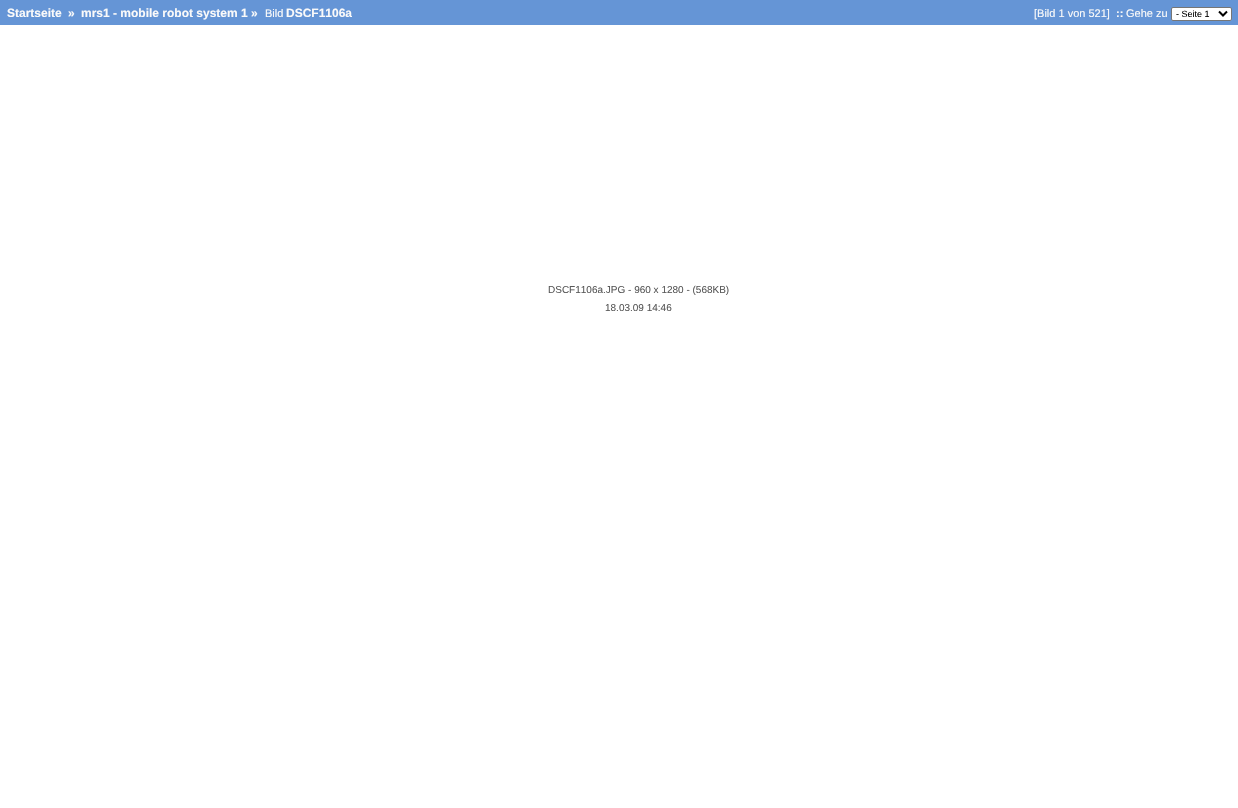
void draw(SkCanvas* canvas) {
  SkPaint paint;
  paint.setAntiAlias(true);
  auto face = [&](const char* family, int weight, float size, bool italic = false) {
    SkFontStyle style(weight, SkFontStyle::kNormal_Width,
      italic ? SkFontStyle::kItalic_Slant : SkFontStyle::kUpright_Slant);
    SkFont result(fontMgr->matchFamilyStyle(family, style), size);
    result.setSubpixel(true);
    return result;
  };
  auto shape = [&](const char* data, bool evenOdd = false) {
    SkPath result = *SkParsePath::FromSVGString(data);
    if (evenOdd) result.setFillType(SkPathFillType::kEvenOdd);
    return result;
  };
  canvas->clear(0xffffffff);
  paint.setColor(0xff6595d6);
  canvas->drawRect(SkRect::MakeXYWH(0, 0, 1238, 25), paint);
  paint.setColor(0xffffffff);
  canvas->drawRoundRect(SkRect::MakeXYWH(1171.5f, 7.5f, 60, 13), 1.5f, 1.5f, paint);
  paint.setStroke(true);
  paint.setStrokeWidth(1);
  paint.setColor(0xff767676);
  canvas->drawRoundRect(SkRect::MakeXYWH(1171.5f, 7.5f, 60, 13), 1.5f, 1.5f, paint);
  paint.setStrokeWidth(2);
  paint.setColor(0xff000000);
  canvas->drawPath(shape("M1219 11.5L1223 15.5L1227 11.5"), paint);
  auto f0 = face("Liberation Sans", 700, 12);
  paint.setStroke(false);
  paint.setColor(0xfffafafa);
  {
    const struct { const char* s; float x, y; } items[] = {
      {"Startseite", 7, 17},
      {"»", 68, 17},
      {"mrs1 - mobile robot system 1 »", 81, 17},
    };
    for (auto [s, x, y] : items) {
      canvas->drawString(s, x, y, f0, paint);
    }
  }
  auto f1 = face("Liberation Sans", 400, 11);
  canvas->drawString("Bild", 265, 17, f1, paint);
  canvas->drawString("DSCF1106a", 286, 17, f0, paint);
  canvas->drawString("[Bild 1 von 521]", 1034, 17, f1, paint);
  auto f2 = face("Liberation Sans", 700, 11);
  canvas->drawString("::", 1116, 17, f2, paint);
  canvas->drawString("Gehe zu", 1126, 17, f1, paint);
  auto f3 = face("Liberation Sans", 400, 9);
  paint.setColor(0xff000000);
  canvas->drawString("- Seite 1", 1176, 17, f3, paint);
  auto f4 = face("Liberation Sans", 400, 10);
  paint.setColor(0xff585858);
  canvas->drawString("DSCF1106a.JPG - 960 x 1280 - (568KB)", 548, 293, f4, paint);
  canvas->drawString("18.03.09 14:46", 605, 311, f4, paint);
}
